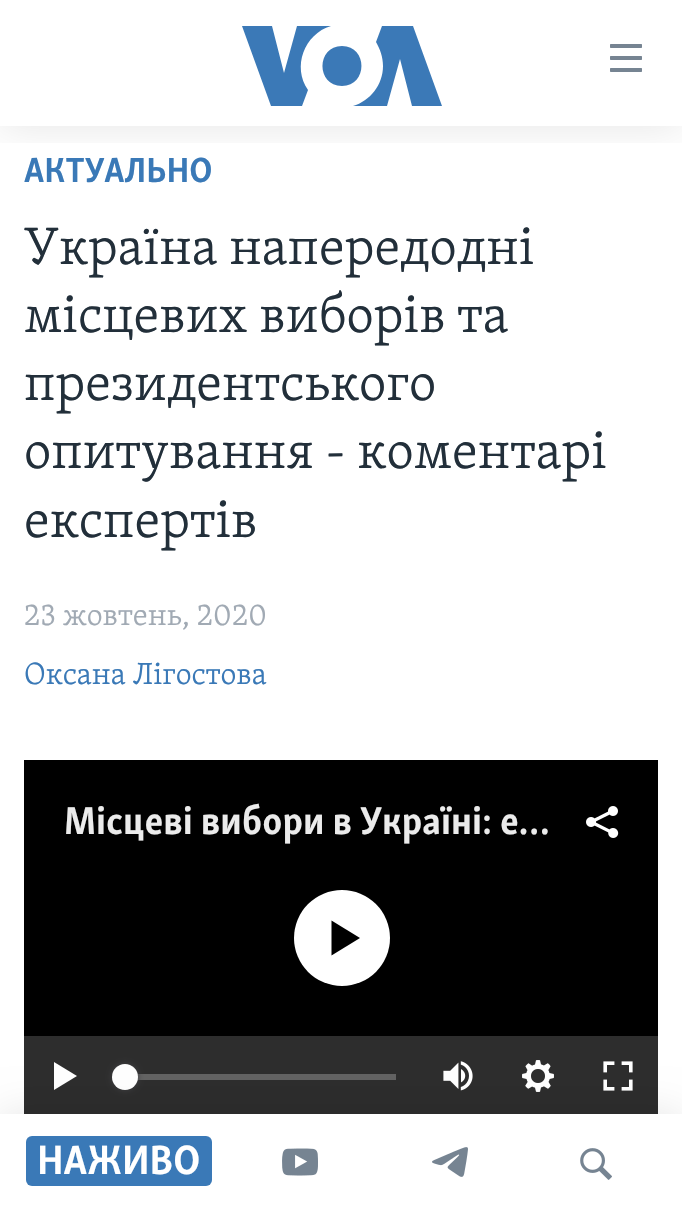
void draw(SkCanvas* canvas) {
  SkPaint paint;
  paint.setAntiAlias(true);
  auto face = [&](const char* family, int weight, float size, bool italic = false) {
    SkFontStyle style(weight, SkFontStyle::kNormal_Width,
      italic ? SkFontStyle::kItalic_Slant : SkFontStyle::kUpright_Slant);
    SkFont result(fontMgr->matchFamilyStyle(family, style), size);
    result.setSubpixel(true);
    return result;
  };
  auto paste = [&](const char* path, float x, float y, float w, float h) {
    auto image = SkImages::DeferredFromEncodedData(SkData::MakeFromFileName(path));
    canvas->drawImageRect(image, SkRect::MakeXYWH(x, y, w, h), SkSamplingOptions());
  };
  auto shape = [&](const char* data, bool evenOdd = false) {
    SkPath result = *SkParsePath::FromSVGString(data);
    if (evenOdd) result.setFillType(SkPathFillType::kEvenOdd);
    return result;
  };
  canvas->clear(0xffffffff);
  paint.setColor(0xff000000);
  canvas->drawRect(SkRect::MakeXYWH(24, 760, 634, 276), paint);
  paste("img/1.png", 586, 806, 33, 32);
  paint.setColor(0xffffffff);
  canvas->drawCircle(342, 938, 48, paint);
  paint.setColor(0xff000000);
  canvas->drawPath(shape("M331.5 955.5L360 938L331.5 920.5Z"), paint);
  paint.setColor(0xff2d2d2d);
  canvas->drawRect(SkRect::MakeXYWH(24, 1036, 634, 78), paint);
  paint.setColor(0xffffffff);
  canvas->drawPath(shape("M54 1090L77 1076L54 1062Z"), paint);
  paint.setColor(0xff626262);
  canvas->drawRect(SkRect::MakeXYWH(137, 1074, 259, 6), paint);
  paint.setColor(0xff414144);
  paint.setMaskFilter(SkMaskFilter::MakeBlur(kNormal_SkBlurStyle, 3));
  canvas->drawRoundRect(SkRect::MakeXYWH(112, 1064, 26, 26), 13, 13, paint);
  paint.setMaskFilter(nullptr);
  paint.setColor(0xffffffff);
  canvas->drawCircle(125, 1077, 13, paint);
  paste("img/2.png", 443, 1061, 30, 30);
  paste("img/3.png", 522, 1060, 32, 32);
  paste("img/4.png", 603, 1061, 30, 30);
  canvas->save();
  canvas->clipRect(SkRect::MakeXYWH(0, 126, 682, 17));
  paint.setColor(0x1a000000);
  paint.setMaskFilter(SkMaskFilter::MakeBlur(kNormal_SkBlurStyle, 20));
  canvas->drawRect(SkRect::MakeXYWH(0, 0, 682, 126), paint);
  paint.setMaskFilter(nullptr);
  canvas->restore();
  paint.setColor(0xff3b79b7);
  canvas->drawPath(shape("M308 90L302 106H271L242 26H272L284 73L297 26H331C304 34 292 67 308 90ZM342 46C316 46 316 86 342 86C368 86 368 46 342 46ZM383 66C383 85 370 101 353 106H387L400 59L412 106H442L413 26H382L376 42C380 49 383 57 383 66Z"), paint);
  paste("img/5.png", 610, 44, 32, 28);
  paint.setColor(0x1a000000);
  paint.setMaskFilter(SkMaskFilter::MakeBlur(kNormal_SkBlurStyle, 20));
  canvas->drawRect(SkRect::MakeXYWH(0, 1114, 682, 100), paint);
  paint.setMaskFilter(nullptr);
  paint.setColor(0xffffffff);
  canvas->drawRect(SkRect::MakeXYWH(0, 1114, 682, 100), paint);
  paint.setColor(0xff3a79b7);
  canvas->drawRoundRect(SkRect::MakeXYWH(26, 1136, 186, 50), 6, 6, paint);
  paste("img/6.png", 282, 1148, 36, 28);
  paste("img/7.png", 432, 1147, 36, 30);
  paste("img/8.png", 580, 1148, 32, 32);
  auto f0 = face("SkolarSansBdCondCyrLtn", 700, 36);
  canvas->drawString("АКТУАЛЬНО", 24, 182, f0, paint);
  auto f1 = face("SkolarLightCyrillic", 300, 54);
  paint.setColor(0xff222f3a);
  {
    const struct { const char* s; float x, y; } items[] = {
      {"Україна напередодні", 24, 264},
      {"місцевих виборів та", 24, 332},
      {"президентського", 24, 400},
      {"опитування - коментарі", 24, 468},
      {"експертів", 24, 537},
    };
    for (auto [s, x, y] : items) {
      canvas->drawString(s, x, y, f1, paint);
    }
  }
  auto f2 = face("SkolarLightCyrillic", 300, 31.5f);
  paint.setColor(0xffa1aab4);
  canvas->drawString("23 жовтень, 2020", 24, 625, f2, paint);
  paint.setColor(0xff3a79b7);
  canvas->drawString("Оксана Лігостова", 24, 684, f2, paint);
  auto f3 = face("SkolarSansBdCondCyrLtn", 700, 40);
  paint.setColor(0xffebebeb);
  canvas->drawString("Місцеві вибори в Україні: е…", 64, 834, f3, paint);
  auto f4 = face("SkolarSansBdCondCyrLtn", 700, 42);
  paint.setColor(0xffffffff);
  canvas->drawString("НАЖИВО", 37, 1174, f4, paint);
}
